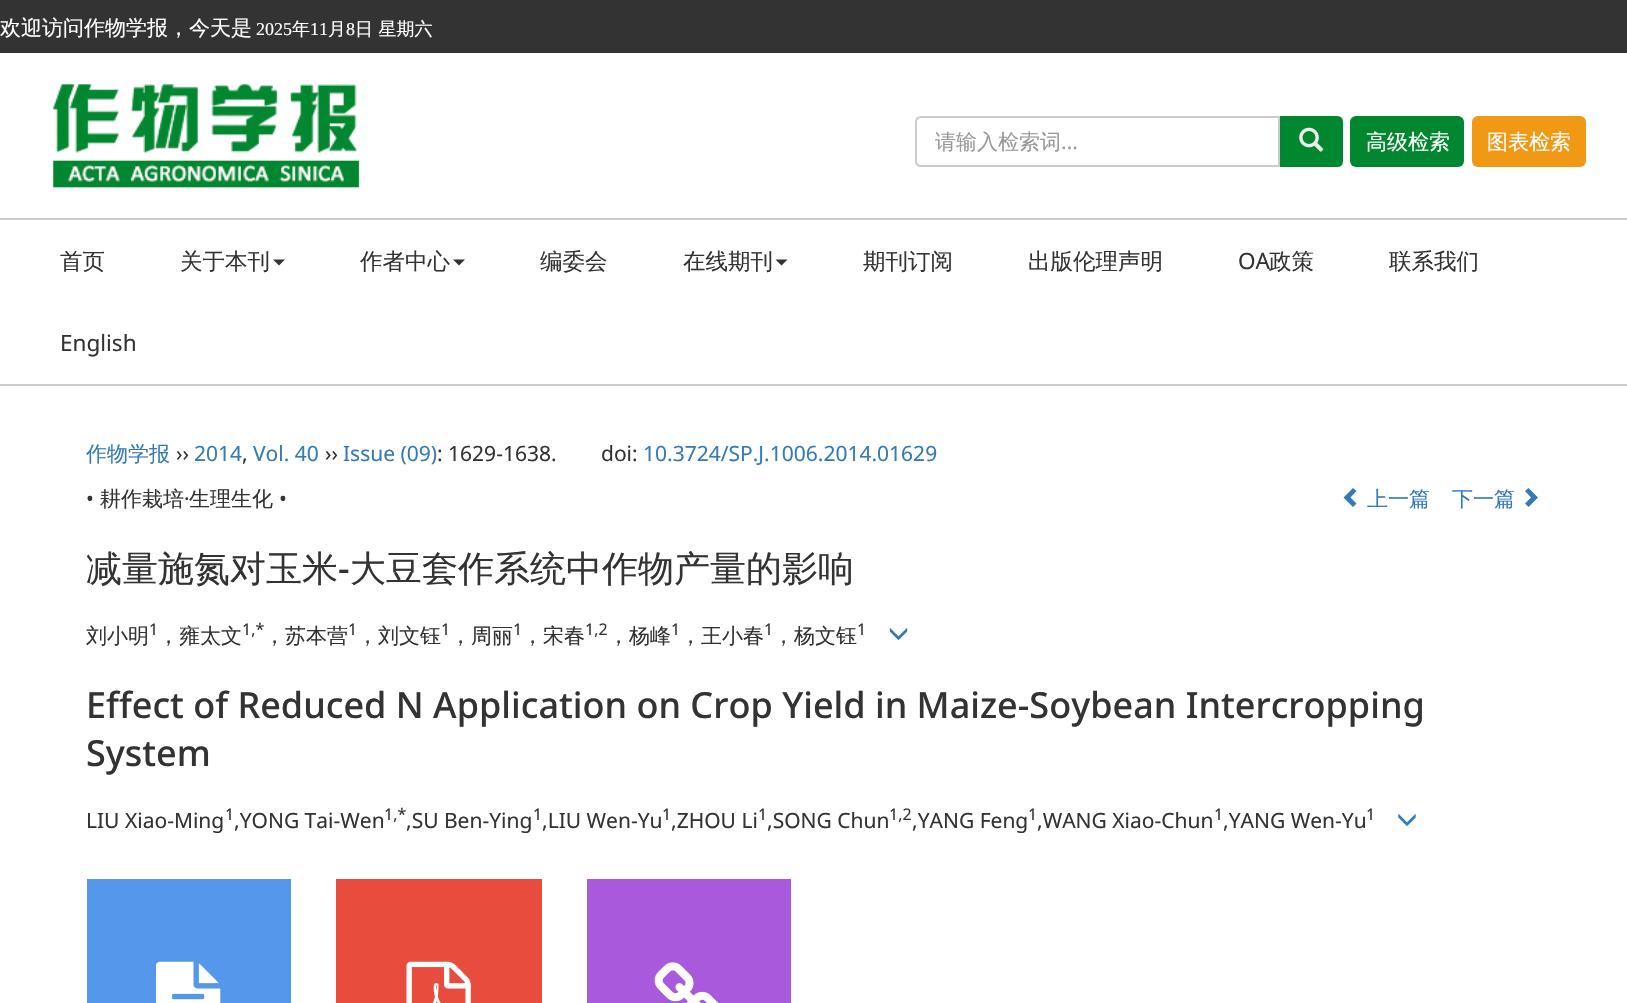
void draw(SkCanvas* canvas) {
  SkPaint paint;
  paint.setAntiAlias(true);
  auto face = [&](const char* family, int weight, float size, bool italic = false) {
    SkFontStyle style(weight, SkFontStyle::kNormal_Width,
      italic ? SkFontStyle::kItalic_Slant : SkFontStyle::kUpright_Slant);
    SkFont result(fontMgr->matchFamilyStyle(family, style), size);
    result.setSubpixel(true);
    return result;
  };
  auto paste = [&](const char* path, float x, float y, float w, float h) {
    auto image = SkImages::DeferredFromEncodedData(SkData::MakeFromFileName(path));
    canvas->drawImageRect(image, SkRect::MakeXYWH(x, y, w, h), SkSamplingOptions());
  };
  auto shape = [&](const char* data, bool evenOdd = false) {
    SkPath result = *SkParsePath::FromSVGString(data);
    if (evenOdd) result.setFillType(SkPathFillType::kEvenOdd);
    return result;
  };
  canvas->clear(0xffffffff);
  paint.setColor(0xff333333);
  canvas->drawRect(SkRect::MakeXYWH(0, 0, 1627, 53), paint);
  paste("img/1.png", 52, 84, 308, 104);
  paint.setStroke(true);
  paint.setStrokeWidth(2);
  paint.setColor(0xffcccccc);
  canvas->drawPath(shape("M921 117H1279V166H921C918 166 916 164 916 161V122C916 119 918 117 921 117Z"), paint);
  paint.setStroke(false);
  paint.setColor(0xff018730);
  canvas->drawPath(shape("M1281 117H1337C1340 117 1342 119 1342 122V161C1342 164 1340 166 1337 166H1281Z"), paint);
  paint.setStroke(true);
  canvas->drawPath(shape("M1281 117H1337C1340 117 1342 119 1342 122V161C1342 164 1340 166 1337 166H1281Z"), paint);
  paste("img/2.png", 1299, 127, 25, 25);
  paint.setStroke(false);
  canvas->drawRoundRect(SkRect::MakeXYWH(1350, 116, 114, 51), 6, 6, paint);
  paint.setColor(0xfff19814);
  canvas->drawRoundRect(SkRect::MakeXYWH(1472, 116, 114, 51), 6, 6, paint);
  paint.setColor(0xffcccccc);
  canvas->drawRect(SkRect::MakeXYWH(0, 218, 1627, 2), paint);
  canvas->drawRect(SkRect::MakeXYWH(0, 384, 1627, 2), paint);
  paint.setColor(0xff333333);
  canvas->drawPath(shape("M273 259.5H285L279 265.5Z"), paint);
  canvas->drawPath(shape("M453 259.5H465L459 265.5Z"), paint);
  canvas->drawPath(shape("M775.5 259.5H787.5L781.5 265.5Z"), paint);
  paint.setColor(0xff337ab7);
  canvas->drawPath(shape("M1356.5 491L1350.5 497.5L1356.5 503.5L1353 507L1343.5 497.5L1353 488Z"), paint);
  canvas->drawPath(shape("M1538 497.5L1528.5 507L1525 503.5L1531 497.5L1525 491L1528.5 488Z"), paint);
  paste("img/3.png", 889, 628, 19, 12);
  paste("img/4.png", 1398, 814, 18, 12);
  paint.setColor(0xff5497eb);
  canvas->drawRect(SkRect::MakeXYWH(87, 879, 204, 124), paint);
  paste("img/5.png", 156, 961, 65, 42);
  paint.setColor(0xffe74c3c);
  canvas->drawRect(SkRect::MakeXYWH(336, 879, 206, 124), paint);
  paste("img/6.png", 406, 961, 65, 42);
  paint.setColor(0xffa959db);
  canvas->drawRect(SkRect::MakeXYWH(587, 879, 204, 124), paint);
  paste("img/7.png", 654, 962, 65, 41);
  auto f0 = face("WenQuanYi Zen Hei", 500, 21);
  paint.setColor(0xffffffff);
  canvas->drawString("欢迎访问作物学报，今天是", 0, 35, f0, paint);
  auto f1 = face("Liberation Serif", 400, 18);
  canvas->drawString("2025", 256, 35, f1, paint);
  auto f2 = face("WenQuanYi Zen Hei", 500, 18);
  canvas->drawString("年", 292, 35, f2, paint);
  canvas->drawString("11", 310, 35, f1, paint);
  canvas->drawString("月", 328, 35, f2, paint);
  canvas->drawString("8", 346, 35, f1, paint);
  canvas->drawString("日 星期六", 355, 35, f2, paint);
  paint.setColor(0xff999999);
  canvas->drawString("请输入检索词", 935, 149, f0, paint);
  auto f3 = face("Noto Sans", 400, 21);
  canvas->drawString("...", 1061, 149, f3, paint);
  paint.setColor(0xffffffff);
  canvas->drawString("高级检索", 1366, 149, f0, paint);
  canvas->drawString("图表检索", 1487, 149, f0, paint);
  auto f4 = face("WenQuanYi Zen Hei", 500, 22.5f);
  paint.setColor(0xff333333);
  {
    const struct { const char* s; float x, y; } items[] = {
      {"首页", 60, 269},
      {"关于本刊", 180, 269},
      {"作者中心", 360, 269},
      {"编委会", 540, 269},
      {"在线期刊", 683, 269},
      {"期刊订阅", 863, 269},
      {"出版伦理声明", 1028, 269},
    };
    for (auto [s, x, y] : items) {
      canvas->drawString(s, x, y, f4, paint);
    }
  }
  auto f5 = face("Noto Sans", 400, 22.5f);
  canvas->drawString("OA", 1238, 269, f5, paint);
  canvas->drawString("政策", 1269, 269, f4, paint);
  canvas->drawString("联系我们", 1389, 269, f4, paint);
  canvas->drawString("English", 60, 351, f5, paint);
  paint.setColor(0xff337ab7);
  canvas->drawString("作物学报", 86, 461, f0, paint);
  paint.setColor(0xff333333);
  canvas->drawString("››", 176, 461, f3, paint);
  paint.setColor(0xff337ab7);
  canvas->drawString("2014", 194, 461, f3, paint);
  canvas->drawString("Vol. 40", 253, 461, f3, paint);
  paint.setColor(0xff333333);
  canvas->drawString("››", 325, 461, f3, paint);
  paint.setColor(0xff337ab7);
  canvas->drawString("Issue (09)", 343, 461, f3, paint);
  paint.setColor(0xff333333);
  canvas->drawString(": 1629-1638.", 437, 461, f3, paint);
  canvas->drawString("doi:", 601, 461, f3, paint);
  paint.setColor(0xff337ab7);
  canvas->drawString("10.3724/SP.J.1006.2014.01629", 643, 461, f3, paint);
  paint.setColor(0xff333333);
  canvas->drawString(",", 242, 461, f3, paint);
  canvas->drawString("•", 86, 506, f3, paint);
  canvas->drawString("耕作栽培", 100, 506, f0, paint);
  canvas->drawString("·", 184, 506, f3, paint);
  canvas->drawString("生理生化", 189, 506, f0, paint);
  canvas->drawString("•", 279, 506, f3, paint);
  paint.setColor(0xff337ab7);
  canvas->drawString("上一篇", 1367, 506, f0, paint);
  canvas->drawString("下一篇", 1452, 506, f0, paint);
  auto f6 = face("WenQuanYi Zen Hei", 500, 36);
  paint.setColor(0xff333333);
  canvas->drawString("减量施氮对玉米", 86, 581, f6, paint);
  auto f7 = face("Noto Sans", 500, 36);
  canvas->drawString("-", 338, 581, f7, paint);
  canvas->drawString("大豆套作系统中作物产量的影响", 350, 581, f6, paint);
  canvas->drawString("刘小明", 86, 643, f0, paint);
  auto f8 = face("Noto Sans", 400, 16);
  canvas->drawString("1", 149, 635, f8, paint);
  canvas->drawString("，雍太文", 158, 643, f0, paint);
  canvas->drawString("1,*", 242, 635, f8, paint);
  canvas->drawString("，苏本营", 264, 643, f0, paint);
  canvas->drawString("1", 348, 635, f8, paint);
  canvas->drawString("，刘文钰", 357, 643, f0, paint);
  canvas->drawString("1", 441, 635, f8, paint);
  canvas->drawString("，周丽", 450, 643, f0, paint);
  canvas->drawString("1", 513, 635, f8, paint);
  canvas->drawString("，宋春", 522, 643, f0, paint);
  canvas->drawString("1,2", 585, 635, f8, paint);
  canvas->drawString("，杨峰", 608, 643, f0, paint);
  canvas->drawString("1", 671, 635, f8, paint);
  canvas->drawString("，王小春", 680, 643, f0, paint);
  canvas->drawString("1", 764, 635, f8, paint);
  canvas->drawString("，杨文钰", 773, 643, f0, paint);
  canvas->drawString("1", 857, 635, f8, paint);
  canvas->drawString("Effect of Reduced N Application on Crop Yield in Maize-Soybean Intercropping", 86, 718, f7, paint);
  canvas->drawString("System", 86, 766, f7, paint);
  canvas->drawString("LIU Xiao-Ming", 86, 828, f3, paint);
  canvas->drawString("1", 225, 820, f8, paint);
  canvas->drawString(",YONG Tai-Wen", 234, 828, f3, paint);
  canvas->drawString("1,*", 384, 820, f8, paint);
  canvas->drawString(",SU Ben-Ying", 406, 828, f3, paint);
  canvas->drawString("1", 533, 820, f8, paint);
  canvas->drawString(",LIU Wen-Yu", 542, 828, f3, paint);
  canvas->drawString("1", 662, 820, f8, paint);
  canvas->drawString(",ZHOU Li", 671, 828, f3, paint);
  canvas->drawString("1", 758, 820, f8, paint);
  canvas->drawString(",SONG Chun", 767, 828, f3, paint);
  canvas->drawString("1,2", 889, 820, f8, paint);
  canvas->drawString(",YANG Feng", 912, 828, f3, paint);
  canvas->drawString("1", 1028, 820, f8, paint);
  canvas->drawString(",WANG Xiao-Chun", 1037, 828, f3, paint);
  canvas->drawString("1", 1214, 820, f8, paint);
  canvas->drawString(",YANG Wen-Yu", 1223, 828, f3, paint);
  canvas->drawString("1", 1366, 820, f8, paint);
}
